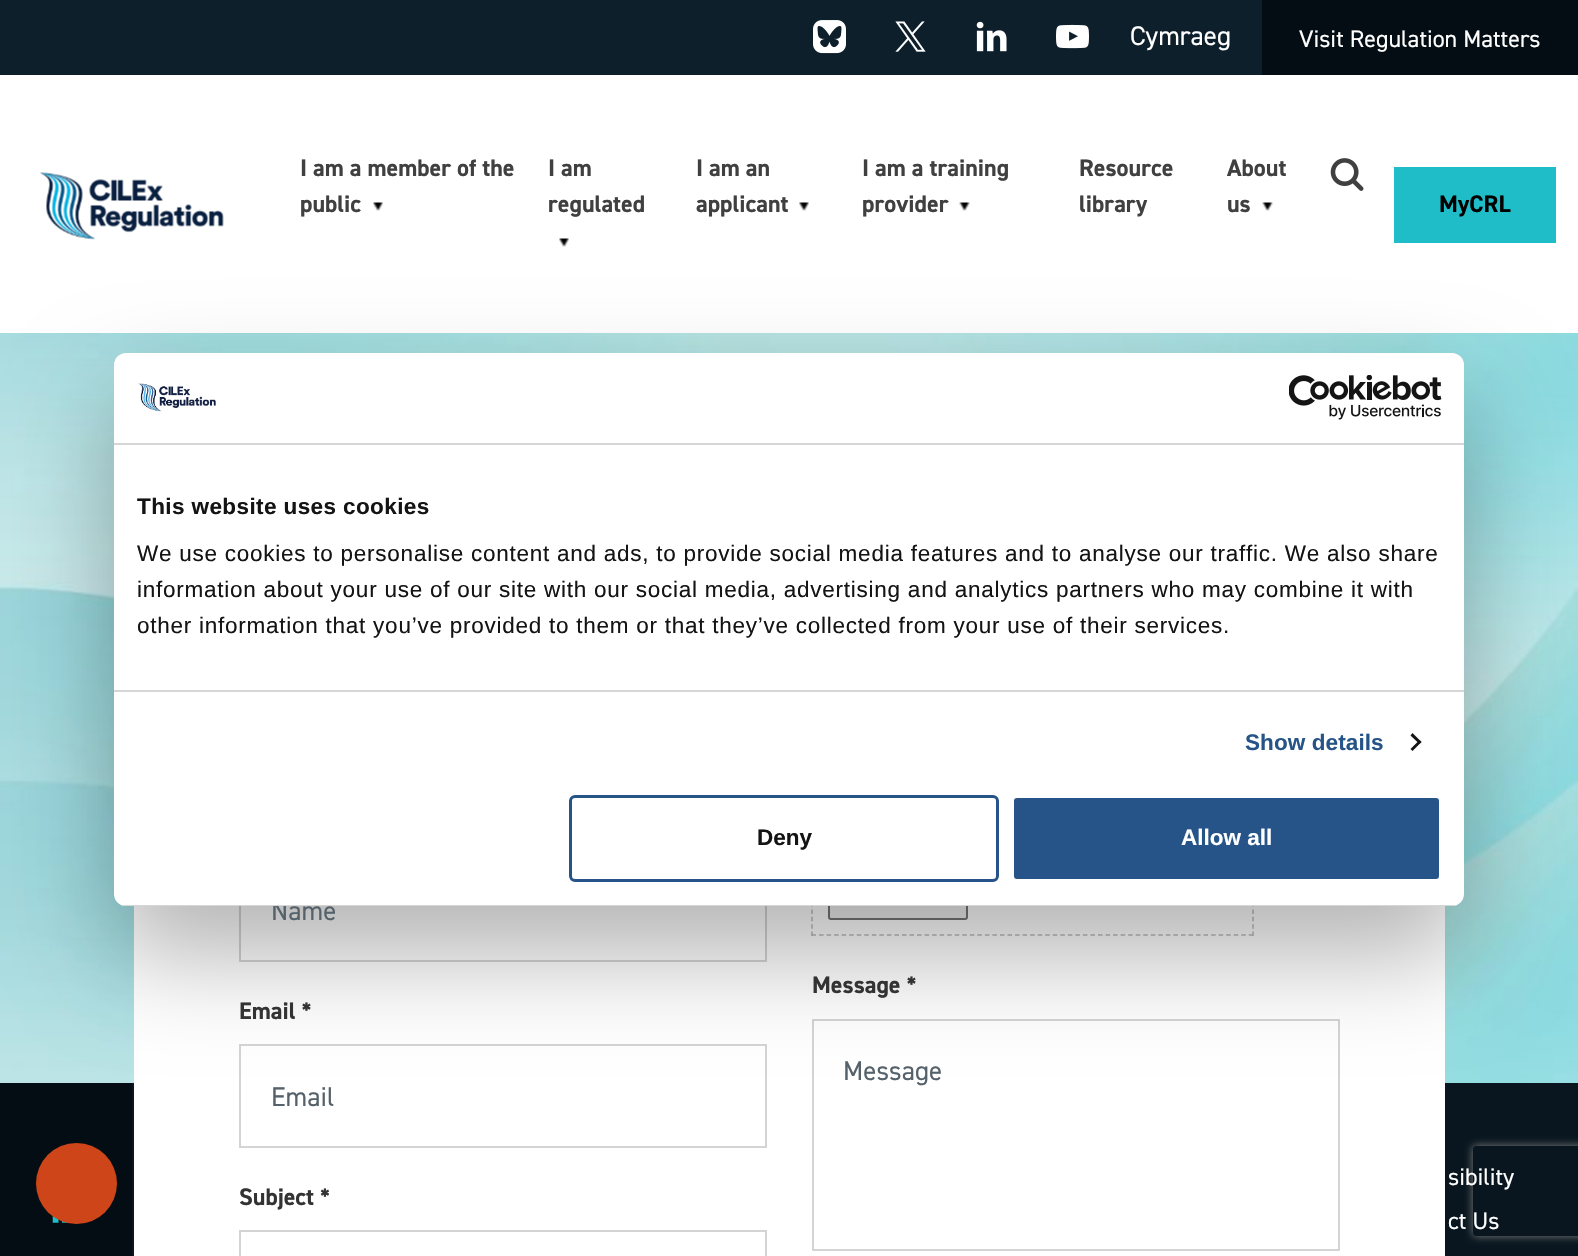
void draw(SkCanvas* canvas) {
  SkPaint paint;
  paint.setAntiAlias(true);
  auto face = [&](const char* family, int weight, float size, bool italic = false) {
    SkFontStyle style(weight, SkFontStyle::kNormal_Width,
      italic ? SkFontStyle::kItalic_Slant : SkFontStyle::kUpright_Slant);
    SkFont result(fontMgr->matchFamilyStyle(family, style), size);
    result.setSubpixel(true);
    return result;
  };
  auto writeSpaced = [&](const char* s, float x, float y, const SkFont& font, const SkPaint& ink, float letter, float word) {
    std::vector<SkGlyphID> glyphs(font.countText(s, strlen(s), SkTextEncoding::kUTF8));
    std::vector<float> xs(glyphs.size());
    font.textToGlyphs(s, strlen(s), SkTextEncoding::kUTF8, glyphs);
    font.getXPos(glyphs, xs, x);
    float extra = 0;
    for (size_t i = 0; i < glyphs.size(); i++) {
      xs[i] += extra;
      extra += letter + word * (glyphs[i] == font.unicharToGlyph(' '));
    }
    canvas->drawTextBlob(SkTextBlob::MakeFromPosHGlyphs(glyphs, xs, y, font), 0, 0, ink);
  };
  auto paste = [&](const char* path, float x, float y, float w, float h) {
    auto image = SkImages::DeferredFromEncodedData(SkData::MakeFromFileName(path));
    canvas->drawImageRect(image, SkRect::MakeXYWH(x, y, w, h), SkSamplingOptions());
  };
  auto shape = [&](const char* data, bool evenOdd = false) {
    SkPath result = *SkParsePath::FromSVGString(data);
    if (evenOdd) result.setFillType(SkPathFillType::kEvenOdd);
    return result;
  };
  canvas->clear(0xffffffff);
  paint.setColor(0xff0e1f2c);
  canvas->drawRect(SkRect::MakeXYWH(0, 0, 1262, 75), paint);
  paste("img/1.png", 813, 20, 33, 34);
  paste("img/2.png", 895, 21, 31, 31);
  paste("img/3.png", 976, 21, 31, 31);
  paste("img/4.png", 1056, 24, 33, 25);
  paint.setColor(0xff050d14);
  canvas->drawRect(SkRect::MakeXYWH(1262, 0, 316, 75), paint);
  paste("img/5.png", 40, 172, 184, 68);
  paste("img/6.png", 373, 202, 10, 9);
  paste("img/6.png", 559, 238, 10, 9);
  paste("img/7.png", 799, 202, 10, 9);
  paste("img/8.png", 959, 202, 11, 9);
  paste("img/8.png", 1262, 202, 11, 9);
  paste("img/9.png", 1330, 158, 34, 33);
  paint.setColor(0xff1ebdc7);
  canvas->drawRect(SkRect::MakeXYWH(1394, 167, 162, 76), paint);
  paste("img/10.png", 0, 333, 1578, 750);
  paint.setColor(0xff09161f);
  canvas->drawRect(SkRect::MakeXYWH(132, 1083, 1446, 173), paint);
  paint.setColor(0xffffffff);
  canvas->drawRect(SkRect::MakeXYWH(134, 906, 1311, 350), paint);
  paint.setStroke(true);
  paint.setStrokeWidth(2);
  paint.setColor(0xffd4d4d4);
  canvas->drawRect(SkRect::MakeXYWH(240, 859, 526, 102), paint);
  canvas->drawRect(SkRect::MakeXYWH(240, 1045, 526, 102), paint);
  canvas->drawRect(SkRect::MakeXYWH(240, 1231, 526, 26), paint);
  paint.setStrokeWidth(1.5f);
  paint.setColor(0xffbbbbbb);
  paint.setPathEffect(SkDashPathEffect::Make({{4.5f, 2.85f}}, 0));
  canvas->drawPath(shape("M1253 858V936"), paint);
  paint.setPathEffect(nullptr);
  paint.setPathEffect(SkDashPathEffect::Make({{4.5f, 3.04f}}, 0));
  canvas->drawPath(shape("M811.5 935H1254"), paint);
  paint.setPathEffect(nullptr);
  paint.setPathEffect(SkDashPathEffect::Make({{4.5f, 2.85f}}, 0));
  canvas->drawPath(shape("M812 858V936"), paint);
  paint.setPathEffect(nullptr);
  paint.setStroke(false);
  paint.setColor(0xffefefef);
  canvas->drawRoundRect(SkRect::MakeXYWH(829, 876, 138, 43), 2, 2, paint);
  paint.setStroke(true);
  paint.setStrokeWidth(2);
  paint.setColor(0xff767676);
  canvas->drawRoundRect(SkRect::MakeXYWH(829, 876, 138, 43), 2, 2, paint);
  paint.setColor(0xffd4d4d4);
  canvas->drawRect(SkRect::MakeXYWH(813, 1020, 526, 230), paint);
  canvas->save();
  canvas->clipPath(shape("M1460 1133H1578V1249H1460ZM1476 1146H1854C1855.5 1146 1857 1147.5 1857 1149V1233C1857 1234.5 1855.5 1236 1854 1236H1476C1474.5 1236 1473 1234.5 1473 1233V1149C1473 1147.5 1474.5 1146 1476 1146Z", true), true);
  paint.setStroke(false);
  paint.setColor(0xff808080);
  paint.setMaskFilter(SkMaskFilter::MakeBlur(kNormal_SkBlurStyle, 4));
  canvas->drawRoundRect(SkRect::MakeXYWH(1473, 1146, 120, 90), 3, 3, paint);
  paint.setMaskFilter(nullptr);
  canvas->restore();
  paint.setColor(0xff050d14);
  canvas->drawRect(SkRect::MakeXYWH(0, 1083, 132, 173), paint);
  paste("img/11.png", 52, 1215, 16, 8);
  paint.setColor(0x4d000000);
  paint.setMaskFilter(SkMaskFilter::MakeBlur(kNormal_SkBlurStyle, 51));
  canvas->drawRoundRect(SkRect::MakeXYWH(114, 401, 1350, 553), 12, 12, paint);
  paint.setMaskFilter(nullptr);
  paint.setColor(0xffcd4518);
  canvas->drawCircle(76.5f, 1183.5f, 40.5f, paint);
  auto f0 = face("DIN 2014", 400, 27);
  paint.setColor(0xffffffff);
  canvas->drawString("Cymraeg", 1130, 45, f0, paint);
  auto f1 = face("DIN 2014", 400, 24);
  canvas->drawString("Visit Regulation Matters", 1299, 47, f1, paint);
  auto f2 = face("DIN 2014", 700, 24);
  paint.setColor(0xff404040);
  {
    const struct { const char* s; float x, y; } items[] = {
      {"I am a member of the", 300, 176},
      {"public", 300, 212},
      {"I am", 548, 176},
      {"regulated", 548, 212},
      {"I am an", 696, 176},
      {"applicant", 696, 212},
      {"I am a training", 862, 176},
      {"provider", 862, 212},
      {"Resource", 1079, 176},
      {"library", 1079, 212},
      {"About", 1227, 176},
      {"us", 1227, 212},
    };
    for (auto [s, x, y] : items) {
      canvas->drawString(s, x, y, f2, paint);
    }
  }
  paint.setColor(0xff000000);
  canvas->drawString("MyCRL", 1439, 212, f2, paint);
  paint.setColor(0xff56626b);
  canvas->drawString("Name", 271, 920, f0, paint);
  paint.setColor(0xff333333);
  canvas->drawString("Email *", 239, 1019, f2, paint);
  paint.setColor(0xff56626b);
  canvas->drawString("Email", 271, 1106, f0, paint);
  paint.setColor(0xff333333);
  canvas->drawString("Subject *", 239, 1205, f2, paint);
  canvas->drawString("Message *", 812, 993, f2, paint);
  paint.setColor(0xff56626b);
  canvas->drawString("Message", 843, 1080, f0, paint);
  paint.setColor(0xffffffff);
  canvas->drawString("sibility", 1448, 1185, f1, paint);
  canvas->drawString("ct Us", 1448, 1229, f1, paint);
  canvas->drawRoundRect(SkRect::MakeXYWH(114, 353, 1350, 553), 12, 12, paint);
  paint.setColor(0xffd6d6d6);
  canvas->drawRect(SkRect::MakeXYWH(114, 443, 1350, 2), paint);
  paste("img/12.png", 138, 383, 78, 29);
  paste("img/13.png", 1289, 375, 153, 45);
  canvas->drawRect(SkRect::MakeXYWH(114, 690, 1350, 2), paint);
  auto f3 = face("Liberation Sans", 700, 22.5f);
  paint.setColor(0xff141414);
  writeSpaced("This website uses cookies", 137, 514, f3, paint, 0.4f, 0);
  auto f4 = face("Liberation Sans", 400, 22.5f);
  {
    const struct { const char* s; float x, y; } items[] = {
      {"We use cookies to personalise content and ads, to provide social media features and to analyse our traffic. We also share", 137, 561},
      {"information about your use of our site with our social media, advertising and analytics partners who may combine it with", 137, 597},
      {"other information that you’ve provided to them or that they’ve collected from your use of their services.", 137, 633},
    };
    for (auto [s, x, y] : items) {
      writeSpaced(s, x, y, f4, paint, 0.75f, 0);
    }
  }
  paint.setColor(0xff275488);
  writeSpaced("Show details", 1245, 750, f3, paint, 0.1f, 0);
  paint.setColor(0xff141414);
  canvas->drawPath(shape("M1412.5 733L1421.5 742L1419.5 744L1410.5 735.5Z"), paint);
  canvas->drawPath(shape("M1419.5 740L1421.5 742L1412.5 751L1410.5 749Z"), paint);
  canvas->save();
  canvas->clipPath(shape("M126 353H1452C1458.5 353 1464 358.5 1464 365V894C1464 900.5 1458.5 906 1452 906H126C119.5 906 114 900.5 114 894V365C114 358.5 119.5 353 126 353Z"), true);
  paint.setColor(0xffd6d6d6);
  canvas->drawRect(SkRect::MakeXYWH(114, 905, 1350, 1), paint);
  canvas->restore();
  paint.setStroke(true);
  paint.setStrokeWidth(3);
  paint.setColor(0xff275488);
  canvas->drawRoundRect(SkRect::MakeXYWH(570.5f, 796.5f, 427, 84), 4.5f, 4.5f, paint);
  paint.setStroke(false);
  paint.setColor(0xff141414);
  canvas->drawString("Deny", 757, 845, f3, paint);
  paint.setColor(0xff275488);
  canvas->drawRoundRect(SkRect::MakeXYWH(1012.5f, 796.5f, 428, 84), 4.5f, 4.5f, paint);
  paint.setStroke(true);
  paint.setColor(0xffffffff);
  canvas->drawRoundRect(SkRect::MakeXYWH(1012.5f, 796.5f, 428, 84), 4.5f, 4.5f, paint);
  paint.setStroke(false);
  canvas->drawString("Allow all", 1181, 845, f3, paint);
}
